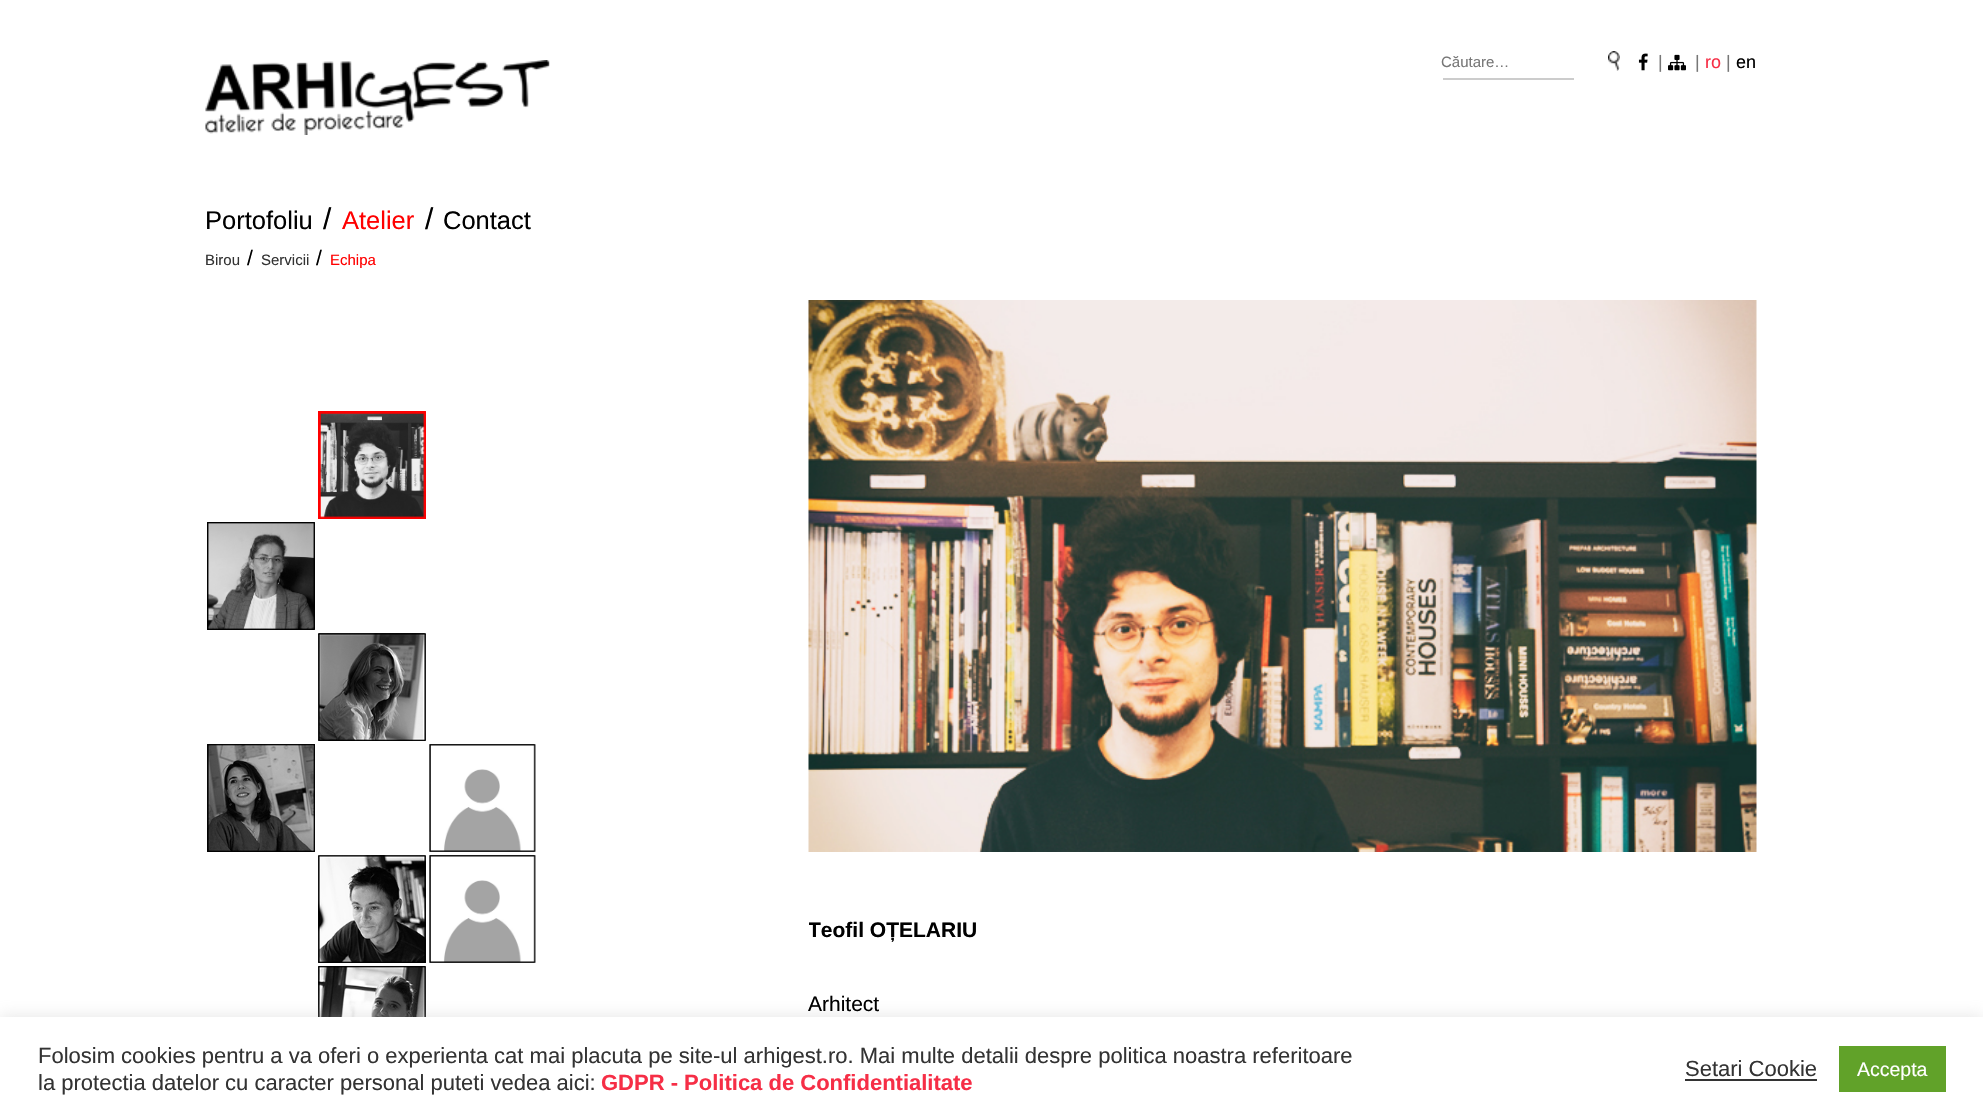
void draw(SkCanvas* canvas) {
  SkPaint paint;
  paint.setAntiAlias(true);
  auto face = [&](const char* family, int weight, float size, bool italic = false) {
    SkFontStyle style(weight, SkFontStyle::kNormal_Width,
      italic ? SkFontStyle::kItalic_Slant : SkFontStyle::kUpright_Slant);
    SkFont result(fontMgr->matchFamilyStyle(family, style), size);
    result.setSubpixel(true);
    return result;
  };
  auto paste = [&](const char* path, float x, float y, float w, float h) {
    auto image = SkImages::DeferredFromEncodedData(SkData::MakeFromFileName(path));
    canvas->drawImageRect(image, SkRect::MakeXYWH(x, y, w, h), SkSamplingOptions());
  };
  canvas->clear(0xffffffff);
  paste("img/1.png", 205, 60, 345, 75);
  paint.setColor(0xffcccccc);
  canvas->drawRect(SkRect::MakeXYWH(1443, 78, 131, 2), paint);
  paste("img/2.png", 1608, 51, 12, 20);
  paste("img/3.png", 1638, 53, 10, 18);
  paste("img/4.png", 1668, 54, 18, 17);
  paste("img/5.png", 318, 411, 108, 108);
  paste("img/6.png", 207, 522, 108, 108);
  paste("img/7.png", 318, 633, 108, 108);
  paste("img/8.png", 207, 744, 108, 108);
  paste("img/9.png", 429, 744, 107, 108);
  paste("img/10.png", 318, 855, 108, 108);
  paste("img/11.png", 429, 855, 107, 108);
  paste("img/12.png", 318, 966, 108, 51);
  paste("img/13.png", 808, 300, 949, 552);
  paint.setColor(0x4dacabab);
  paint.setMaskFilter(SkMaskFilter::MakeBlur(kNormal_SkBlurStyle, 7.5f));
  canvas->drawRect(SkRect::MakeXYWH(0, 1016, 1983, 103), paint);
  paint.setMaskFilter(nullptr);
  {
    const struct { float x, y, w, h; SkColor color; } items[] = {
      {0, 1017, 1983, 103, 0xffffffff},
      {1685, 1079, 132, 2, 0xff333333},
      {1839, 1046, 107, 46, 0xff61a229},
    };
    for (auto [x, y, w, h, color] : items) {
      paint.setColor(color);
      canvas->drawRect(SkRect::MakeXYWH(x, y, w, h), paint);
    }
  }
  auto f0 = face("Liberation Sans", 400, 15);
  paint.setColor(0xff777777);
  canvas->drawString("Căutare…", 1441, 67, f0, paint);
  auto f1 = face("Liberation Sans", 400, 18);
  canvas->drawString("|", 1658, 68, f1, paint);
  canvas->drawString("|", 1695, 68, f1, paint);
  paint.setColor(0xfff62e46);
  canvas->drawString("ro", 1705, 68, f1, paint);
  paint.setColor(0xff777777);
  canvas->drawString("|", 1726, 68, f1, paint);
  paint.setColor(0xff000000);
  canvas->drawString("en", 1736, 68, f1, paint);
  auto f2 = face("Liberation Sans", 400, 25.5f);
  canvas->drawString("Portofoliu", 205, 229, f2, paint);
  auto f3 = face("Liberation Sans", 400, 30);
  canvas->drawString("/", 323, 229, f3, paint);
  paint.setColor(0xffff0000);
  canvas->drawString("Atelier", 342, 229, f2, paint);
  paint.setColor(0xff000000);
  canvas->drawString("/", 425, 229, f3, paint);
  canvas->drawString("Contact", 443, 229, f2, paint);
  paint.setColor(0xff333333);
  canvas->drawString("Birou", 205, 265, f0, paint);
  auto f4 = face("Liberation Sans", 400, 21);
  paint.setColor(0xff000000);
  canvas->drawString("/", 247, 265, f4, paint);
  paint.setColor(0xff333333);
  canvas->drawString("Servicii", 261, 265, f0, paint);
  paint.setColor(0xff000000);
  canvas->drawString("/", 316, 265, f4, paint);
  paint.setColor(0xffff0000);
  canvas->drawString("Echipa", 330, 265, f0, paint);
  canvas->save();
  canvas->clipRect(SkRect::MakeXYWH(809, 912, 970, 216));
  auto f5 = face("Liberation Sans", 700, 21);
  paint.setColor(0xff000000);
  canvas->drawString("Teofil OȚELARIU", 808, 937, f5, paint);
  canvas->restore();
  canvas->drawString("Arhitect", 808, 1011, f4, paint);
  auto f6 = face("Liberation Sans", 400, 22);
  paint.setColor(0xff333333);
  canvas->drawString("Folosim cookies pentru a va oferi o experienta cat mai placuta pe site-ul arhigest.ro. Mai multe detalii despre politica noastra referitoare", 38, 1063, f6, paint);
  canvas->drawString("la protectia datelor cu caracter personal puteti vedea aici:", 38, 1090, f6, paint);
  auto f7 = face("Liberation Sans", 700, 22);
  paint.setColor(0xfff62e46);
  canvas->drawString("GDPR - Politica de Confidentialitate", 601, 1090, f7, paint);
  paint.setColor(0xff333333);
  canvas->drawString("Setari Cookie", 1685, 1076, f6, paint);
  auto f8 = face("Liberation Sans", 400, 19.5f);
  paint.setColor(0xffffffff);
  canvas->drawString("Accepta", 1857, 1076, f8, paint);
}
